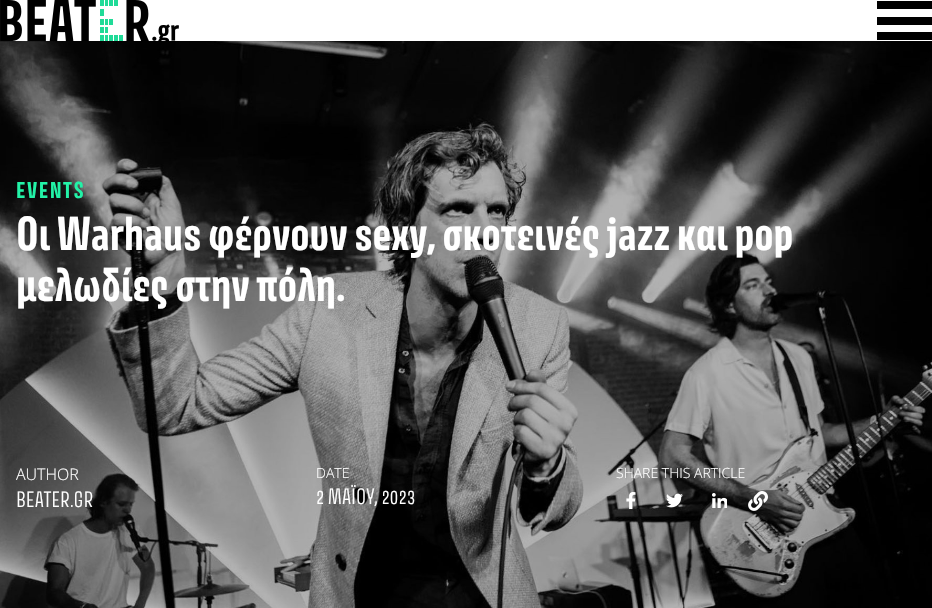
void draw(SkCanvas* canvas) {
  SkPaint paint;
  paint.setAntiAlias(true);
  auto face = [&](const char* family, int weight, float size, bool italic = false) {
    SkFontStyle style(weight, SkFontStyle::kNormal_Width,
      italic ? SkFontStyle::kItalic_Slant : SkFontStyle::kUpright_Slant);
    SkFont result(fontMgr->matchFamilyStyle(family, style), size);
    result.setSubpixel(true);
    return result;
  };
  auto writeSpaced = [&](const char* s, float x, float y, const SkFont& font, const SkPaint& ink, float letter, float word) {
    std::vector<SkGlyphID> glyphs(font.countText(s, strlen(s), SkTextEncoding::kUTF8));
    std::vector<float> xs(glyphs.size());
    font.textToGlyphs(s, strlen(s), SkTextEncoding::kUTF8, glyphs);
    font.getXPos(glyphs, xs, x);
    float extra = 0;
    for (size_t i = 0; i < glyphs.size(); i++) {
      xs[i] += extra;
      extra += letter + word * (glyphs[i] == font.unicharToGlyph(' '));
    }
    canvas->drawTextBlob(SkTextBlob::MakeFromPosHGlyphs(glyphs, xs, y, font), 0, 0, ink);
  };
  auto paste = [&](const char* path, float x, float y, float w, float h) {
    auto image = SkImages::DeferredFromEncodedData(SkData::MakeFromFileName(path));
    canvas->drawImageRect(image, SkRect::MakeXYWH(x, y, w, h), SkSamplingOptions());
  };
  canvas->clear(0xffffffff);
  paste("img/2.png", 0, 41, 932, 567);
  paste("img/1.png", 0, 0, 179, 42);
  {
    const struct { float x, y, w, h; SkColor color; } items[] = {
      {877, 1, 55, 8, 0xff000000},
      {877, 17, 55, 8, 0xff000000},
      {877, 32, 55, 8, 0xff000000},
    };
    for (auto [x, y, w, h, color] : items) {
      paint.setColor(color);
      canvas->drawRect(SkRect::MakeXYWH(x, y, w, h), paint);
    }
  }
  paste("img/3.png", 626, 492, 10, 17);
  paste("img/4.png", 666, 493, 17, 15);
  paste("img/5.png", 712, 493, 15, 15);
  paste("img/6.png", 748, 491, 20, 20);
  auto f0 = face("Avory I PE", 700, 20.5f);
  paint.setColor(0xff22f2a7);
  writeSpaced("EVENTS", 16, 198, f0, paint, 1.5f, 0);
  auto f1 = face("Avory I PE", 700, 42.4f);
  paint.setColor(0xffffffff);
  canvas->drawString("Οι Warhaus φέρνουν sexy, σκοτεινές jazz και pop", 16, 250, f1, paint);
  canvas->drawString("μελωδίες στην πόλη.", 16, 301, f1, paint);
  auto f2 = face("Open Sans", 300, 16);
  canvas->drawString("AUTHOR", 16, 480, f2, paint);
  auto f3 = face("Avory I PE", 300, 20);
  canvas->drawString("BEATER.GR", 16, 507, f3, paint);
  auto f4 = face("Open Sans", 300, 14);
  canvas->drawString("DATE", 316, 478, f4, paint);
  canvas->drawString("2 ΜΑΪΟΥ, 2023", 316, 504, f3, paint);
  canvas->drawString("SHARE THIS ARTICLE", 616, 478, f4, paint);
}
